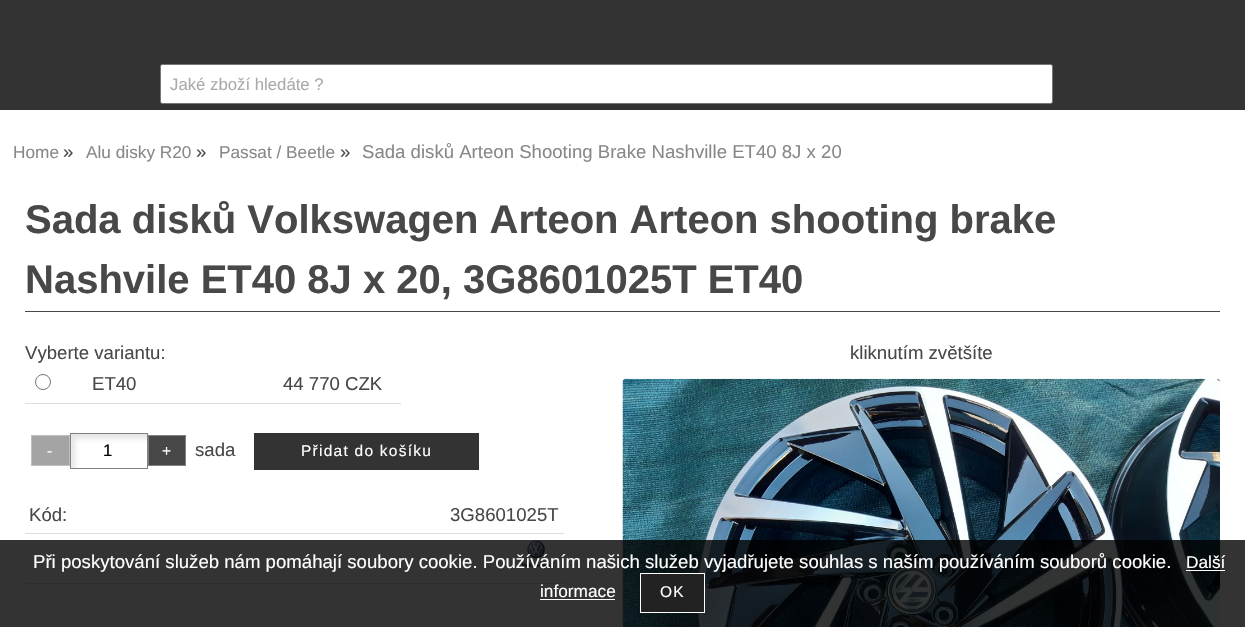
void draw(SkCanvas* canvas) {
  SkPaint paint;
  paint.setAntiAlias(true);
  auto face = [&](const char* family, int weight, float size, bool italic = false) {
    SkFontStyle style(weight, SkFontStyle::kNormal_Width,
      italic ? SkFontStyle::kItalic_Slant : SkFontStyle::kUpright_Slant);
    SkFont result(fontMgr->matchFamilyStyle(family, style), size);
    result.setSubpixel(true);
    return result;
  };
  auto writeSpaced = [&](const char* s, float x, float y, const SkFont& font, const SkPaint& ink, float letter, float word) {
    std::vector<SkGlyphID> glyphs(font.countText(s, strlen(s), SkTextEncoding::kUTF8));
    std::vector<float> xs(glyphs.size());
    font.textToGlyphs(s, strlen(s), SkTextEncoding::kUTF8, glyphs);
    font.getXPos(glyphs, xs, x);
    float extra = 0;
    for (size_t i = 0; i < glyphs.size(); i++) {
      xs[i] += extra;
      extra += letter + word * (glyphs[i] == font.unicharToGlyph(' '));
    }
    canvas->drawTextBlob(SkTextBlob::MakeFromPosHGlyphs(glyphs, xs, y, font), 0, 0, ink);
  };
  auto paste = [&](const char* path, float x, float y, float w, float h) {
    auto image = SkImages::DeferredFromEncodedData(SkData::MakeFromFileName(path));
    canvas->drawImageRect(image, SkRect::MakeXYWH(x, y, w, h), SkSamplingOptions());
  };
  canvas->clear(0xffffffff);
  paint.setColor(0xff333333);
  canvas->drawRect(SkRect::MakeXYWH(0, 0, 1245, 110), paint);
  paint.setColor(0xffffffff);
  canvas->drawRoundRect(SkRect::MakeXYWH(160.5f, 64.5f, 892, 39), 2, 2, paint);
  paint.setStroke(true);
  paint.setStrokeWidth(1);
  paint.setColor(0xff767676);
  canvas->drawRoundRect(SkRect::MakeXYWH(160.5f, 64.5f, 892, 39), 2, 2, paint);
  paint.setStroke(false);
  paint.setColor(0xff484848);
  canvas->drawRect(SkRect::MakeXYWH(25, 311, 1195, 1), paint);
  paint.setStroke(true);
  paint.setColor(0xff767676);
  canvas->drawCircle(43, 382, 7.5f, paint);
  paint.setStroke(false);
  paint.setColor(0xffdddddd);
  canvas->drawRect(SkRect::MakeXYWH(25, 403, 376, 1), paint);
  paint.setColor(0xffa4a4a4);
  canvas->drawRect(SkRect::MakeXYWH(31.5f, 435.5f, 38, 30), paint);
  paint.setStroke(true);
  paint.setColor(0xffc0c0c0);
  canvas->drawRect(SkRect::MakeXYWH(31.5f, 435.5f, 38, 30), paint);
  paste("img/1.png", 70, 432, 78, 36);
  paint.setColor(0xff808080);
  canvas->drawRect(SkRect::MakeXYWH(70.5f, 433.5f, 77, 35), paint);
  paint.setStroke(false);
  paint.setColor(0xff484848);
  canvas->drawRect(SkRect::MakeXYWH(148.5f, 435.5f, 37, 30), paint);
  paint.setStroke(true);
  paint.setColor(0xff808080);
  canvas->drawRect(SkRect::MakeXYWH(148.5f, 435.5f, 37, 30), paint);
  paint.setStroke(false);
  paint.setColor(0xff333333);
  canvas->drawRect(SkRect::MakeXYWH(254, 433, 225, 37), paint);
  paste("img/2.png", 622, 378, 598, 249);
  paint.setColor(0xffdddddd);
  canvas->drawRect(SkRect::MakeXYWH(25, 533, 539, 1), paint);
  canvas->drawRect(SkRect::MakeXYWH(25, 583, 539, 1), paint);
  paste("img/3.png", 520, 540, 31, 29);
  {
    const struct { float x, y, w, h; SkColor color; } items[] = {
      {0, 540, 1245, 87, 0xcc000000},
      {1186, 570, 39, 1, 0xffffffff},
      {540, 599, 75, 1, 0xffffffff},
    };
    for (auto [x, y, w, h, color] : items) {
      paint.setColor(color);
      canvas->drawRect(SkRect::MakeXYWH(x, y, w, h), paint);
    }
  }
  paint.setColor(0xff222222);
  canvas->drawRect(SkRect::MakeXYWH(640.5f, 573.5f, 64, 39), paint);
  paint.setStroke(true);
  paint.setColor(0xffffffff);
  canvas->drawRect(SkRect::MakeXYWH(640.5f, 573.5f, 64, 39), paint);
  auto f0 = face("Liberation Sans", 400, 16.75f);
  paint.setStroke(false);
  paint.setColor(0xffaaaaaa);
  canvas->drawString("Jaké zboží hledáte ?", 170, 90, f0, paint);
  auto f1 = face("Liberation Sans", 400, 17.25f);
  paint.setColor(0xff888888);
  canvas->drawString("Home", 13, 158, f1, paint);
  auto f2 = face("Liberation Sans", 400, 18.6f);
  paint.setColor(0xff484848);
  canvas->drawString("»", 63, 158, f2, paint);
  paint.setColor(0xff888888);
  canvas->drawString("Alu disky R20", 86, 158, f1, paint);
  paint.setColor(0xff484848);
  canvas->drawString("»", 196, 158, f2, paint);
  paint.setColor(0xff888888);
  canvas->drawString("Passat / Beetle", 219, 158, f1, paint);
  paint.setColor(0xff484848);
  canvas->drawString("»", 340, 158, f2, paint);
  paint.setColor(0xff888888);
  canvas->drawString("Sada disků Arteon Shooting Brake Nashville ET40 8J x 20", 362, 158, f2, paint);
  auto f3 = face("Liberation Sans", 700, 40);
  paint.setColor(0xff484848);
  canvas->drawString("Sada disků Volkswagen Arteon Arteon shooting brake", 25, 233, f3, paint);
  canvas->drawString("Nashvile ET40 8J x 20, 3G8601025T ET40", 25, 293, f3, paint);
  {
    const struct { const char* s; float x, y; } items[] = {
      {"Vyberte variantu:", 25, 359},
      {"ET40", 92, 390},
      {"44 770 CZK", 283, 390},
    };
    for (auto [s, x, y] : items) {
      canvas->drawString(s, x, y, f2, paint);
    }
  }
  auto f4 = face("Liberation Sans", 400, 15.5f);
  paint.setColor(0xffffffff);
  writeSpaced("-", 47, 456, f4, paint, 1.25f, 0);
  paint.setColor(0xff000000);
  writeSpaced("1", 103, 456, f0, paint, 1.25f, 0);
  paint.setColor(0xffffffff);
  writeSpaced("+", 162, 456, f4, paint, 1.25f, 0);
  paint.setColor(0xff484848);
  canvas->drawString("sada", 195, 456, f2, paint);
  paint.setColor(0xffffffff);
  writeSpaced("Přidat do košíku", 301, 456, f4, paint, 1.25f, 0);
  paint.setColor(0xff484848);
  {
    const struct { const char* s; float x, y; } items[] = {
      {"kliknutím zvětšíte", 850, 359},
      {"Kód:", 29, 521},
      {"3G8601025T", 450, 521},
    };
    for (auto [s, x, y] : items) {
      canvas->drawString(s, x, y, f2, paint);
    }
  }
  paint.setColor(0xffffffff);
  canvas->drawString("Při poskytování služeb nám pomáhají soubory cookie. Používáním našich služeb vyjadřujete souhlas s naším používáním souborů cookie.", 33, 568, f2, paint);
  canvas->drawString("Další", 1186, 568, f1, paint);
  canvas->drawString("informace", 540, 597, f1, paint);
  writeSpaced("OK", 660, 597, f4, paint, 1.25f, 0);
}
